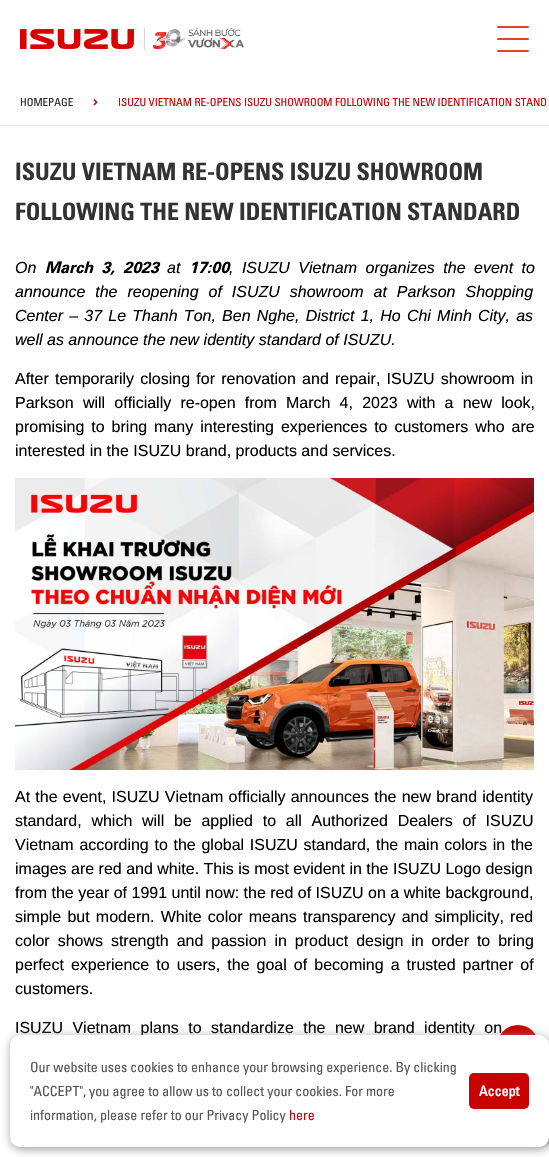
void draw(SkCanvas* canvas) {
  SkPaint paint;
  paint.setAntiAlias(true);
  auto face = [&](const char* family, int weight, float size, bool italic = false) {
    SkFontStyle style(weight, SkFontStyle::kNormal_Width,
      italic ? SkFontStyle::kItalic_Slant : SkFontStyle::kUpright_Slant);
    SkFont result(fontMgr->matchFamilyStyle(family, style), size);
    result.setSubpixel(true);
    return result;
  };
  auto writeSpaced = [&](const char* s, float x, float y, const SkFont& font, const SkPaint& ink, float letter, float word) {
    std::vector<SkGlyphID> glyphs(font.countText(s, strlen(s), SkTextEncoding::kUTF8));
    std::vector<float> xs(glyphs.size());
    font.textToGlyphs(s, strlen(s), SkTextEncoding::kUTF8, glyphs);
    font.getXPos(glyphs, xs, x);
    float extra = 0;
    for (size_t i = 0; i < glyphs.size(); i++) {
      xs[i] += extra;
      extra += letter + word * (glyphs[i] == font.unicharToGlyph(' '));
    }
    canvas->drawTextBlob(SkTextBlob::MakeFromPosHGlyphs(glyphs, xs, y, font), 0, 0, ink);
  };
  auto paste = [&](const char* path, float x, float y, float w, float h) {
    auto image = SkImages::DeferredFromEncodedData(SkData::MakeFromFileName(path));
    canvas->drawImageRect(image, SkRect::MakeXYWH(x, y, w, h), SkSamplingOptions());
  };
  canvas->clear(0xffffffff);
  paste("img/1.png", 20, 29, 114, 20);
  paint.setColor(0xffd6d6d6);
  canvas->drawRect(SkRect::MakeXYWH(144, 28, 1, 22), paint);
  paste("img/2.png", 153, 28, 91, 21);
  paint.setColor(0xffdd432f);
  canvas->drawRoundRect(SkRect::MakeXYWH(497, 26, 32, 2), 1, 1, paint);
  canvas->drawRoundRect(SkRect::MakeXYWH(497, 38, 32, 2), 1, 1, paint);
  canvas->drawRoundRect(SkRect::MakeXYWH(497, 50, 32, 2), 1, 1, paint);
  paint.setColor(0xffeaeaea);
  canvas->drawRect(SkRect::MakeXYWH(0, 125, 549, 1), paint);
  paste("img/3.png", 93, 99, 5, 7);
  paste("img/4.png", 15, 478, 519, 292);
  paint.setColor(0xff808080);
  paint.setMaskFilter(SkMaskFilter::MakeBlur(kNormal_SkBlurStyle, 2.5f));
  canvas->drawRoundRect(SkRect::MakeXYWH(479, 1083, 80, 60), 2, 2, paint);
  paint.setMaskFilter(nullptr);
  auto f0 = face("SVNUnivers", 400, 11);
  paint.setColor(0xff282827);
  canvas->drawString("HOMEPAGE", 20, 106, f0, paint);
  paint.setColor(0xffc80200);
  canvas->drawString("ISUZU VIETNAM RE-OPENS ISUZU SHOWROOM FOLLOWING THE NEW IDENTIFICATION STAND", 118, 106, f0, paint);
  auto f1 = face("SVNUnivers", 700, 24);
  paint.setColor(0xff333333);
  canvas->drawString("ISUZU VIETNAM RE-OPENS ISUZU SHOWROOM", 15, 180, f1, paint);
  canvas->drawString("FOLLOWING THE NEW IDENTIFICATION STANDARD", 15, 220, f1, paint);
  auto f2 = face("Liberation Sans", 400, 16, true);
  paint.setColor(0xff000000);
  canvas->drawString("On", 15, 273, f2, paint);
  auto f3 = face("SVNUnivers", 700, 16, true);
  writeSpaced("March 3, 2023", 45, 273, f3, paint, 0, 4);
  canvas->drawString("at", 167, 273, f2, paint);
  canvas->drawString("17:00", 189, 273, f3, paint);
  writeSpaced(", ISUZU Vietnam organizes the event to", 229, 273, f2, paint, 0, 4);
  writeSpaced("announce the reopening of ISUZU showroom at Parkson Shopping", 15, 297, f2, paint, 0, 5.5f);
  writeSpaced("Center – 37 Le Thanh Ton, Ben Nghe, District 1, Ho Chi Minh City, as", 15, 321, f2, paint, 0, 1.75f);
  canvas->drawString("well as announce the new identity standard of ISUZU.", 15, 345, f2, paint);
  auto f4 = face("Liberation Sans", 400, 16);
  writeSpaced("After temporarily closing for renovation and repair, ISUZU showroom in", 15, 384, f4, paint, 0, 1.75f);
  writeSpaced("Parkson will officially re-open from March 4, 2023 with a new look,", 15, 408, f4, paint, 0, 4.75f);
  writeSpaced("promising to bring many interesting experiences to customers who are", 15, 432, f4, paint, 0, 2.5f);
  canvas->drawString("interested in the ISUZU brand, products and services.", 15, 456, f4, paint);
  writeSpaced("At the event, ISUZU Vietnam officially announces the new brand identity", 15, 802, f4, paint, 0, 0.75f);
  writeSpaced("standard, which will be applied to all Authorized Dealers of ISUZU", 15, 826, f4, paint, 0, 5.25f);
  writeSpaced("Vietnam according to the global ISUZU standard, the main colors in the", 15, 850, f4, paint, 0, 1.25f);
  canvas->drawString("images are red and white. This is most evident in the ISUZU Logo design", 15, 874, f4, paint);
  canvas->drawString("from the year of 1991 until now: the red of ISUZU on a white background,", 15, 898, f4, paint);
  writeSpaced("simple but modern. White color means transparency and simplicity, red", 15, 922, f4, paint, 0, 1.75f);
  writeSpaced("color shows strength and passion in product design in order to bring", 15, 946, f4, paint, 0, 3.5f);
  writeSpaced("perfect experience to users, the goal of becoming a trusted partner of", 15, 970, f4, paint, 0, 2.6f);
  canvas->drawString("customers.", 15, 994, f4, paint);
  writeSpaced("ISUZU Vietnam plans to standardize the new brand identity on", 15, 1033, f4, paint, 0, 5);
  paint.setColor(0xffc80200);
  canvas->drawCircle(518, 1046, 21, paint);
  paint.setColor(0xff999999);
  paint.setMaskFilter(SkMaskFilter::MakeBlur(kNormal_SkBlurStyle, 5));
  canvas->drawRoundRect(SkRect::MakeXYWH(11, 1037, 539, 112), 10, 10, paint);
  paint.setMaskFilter(nullptr);
  paint.setColor(0xffffffff);
  canvas->drawRoundRect(SkRect::MakeXYWH(10, 1035, 539, 112), 10, 10, paint);
  auto f5 = face("SVNUnivers", 400, 14);
  paint.setColor(0xff555555);
  {
    const struct { const char* s; float x, y; } items[] = {
      {"Our website uses cookies to enhance your browsing experience. By clicking", 30, 1072},
      {"\"ACCEPT\", you agree to allow us to collect your cookies. For more", 30, 1096},
      {"information, please refer to our Privacy Policy", 30, 1120},
    };
    for (auto [s, x, y] : items) {
      canvas->drawString(s, x, y, f5, paint);
    }
  }
  paint.setColor(0xffc80200);
  canvas->drawString("here", 289, 1120, f5, paint);
  canvas->drawRoundRect(SkRect::MakeXYWH(469, 1073, 60, 36), 5, 5, paint);
  auto f6 = face("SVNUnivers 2", 700, 14);
  paint.setColor(0xffffffff);
  canvas->drawString("Accept", 479, 1096, f6, paint);
}
